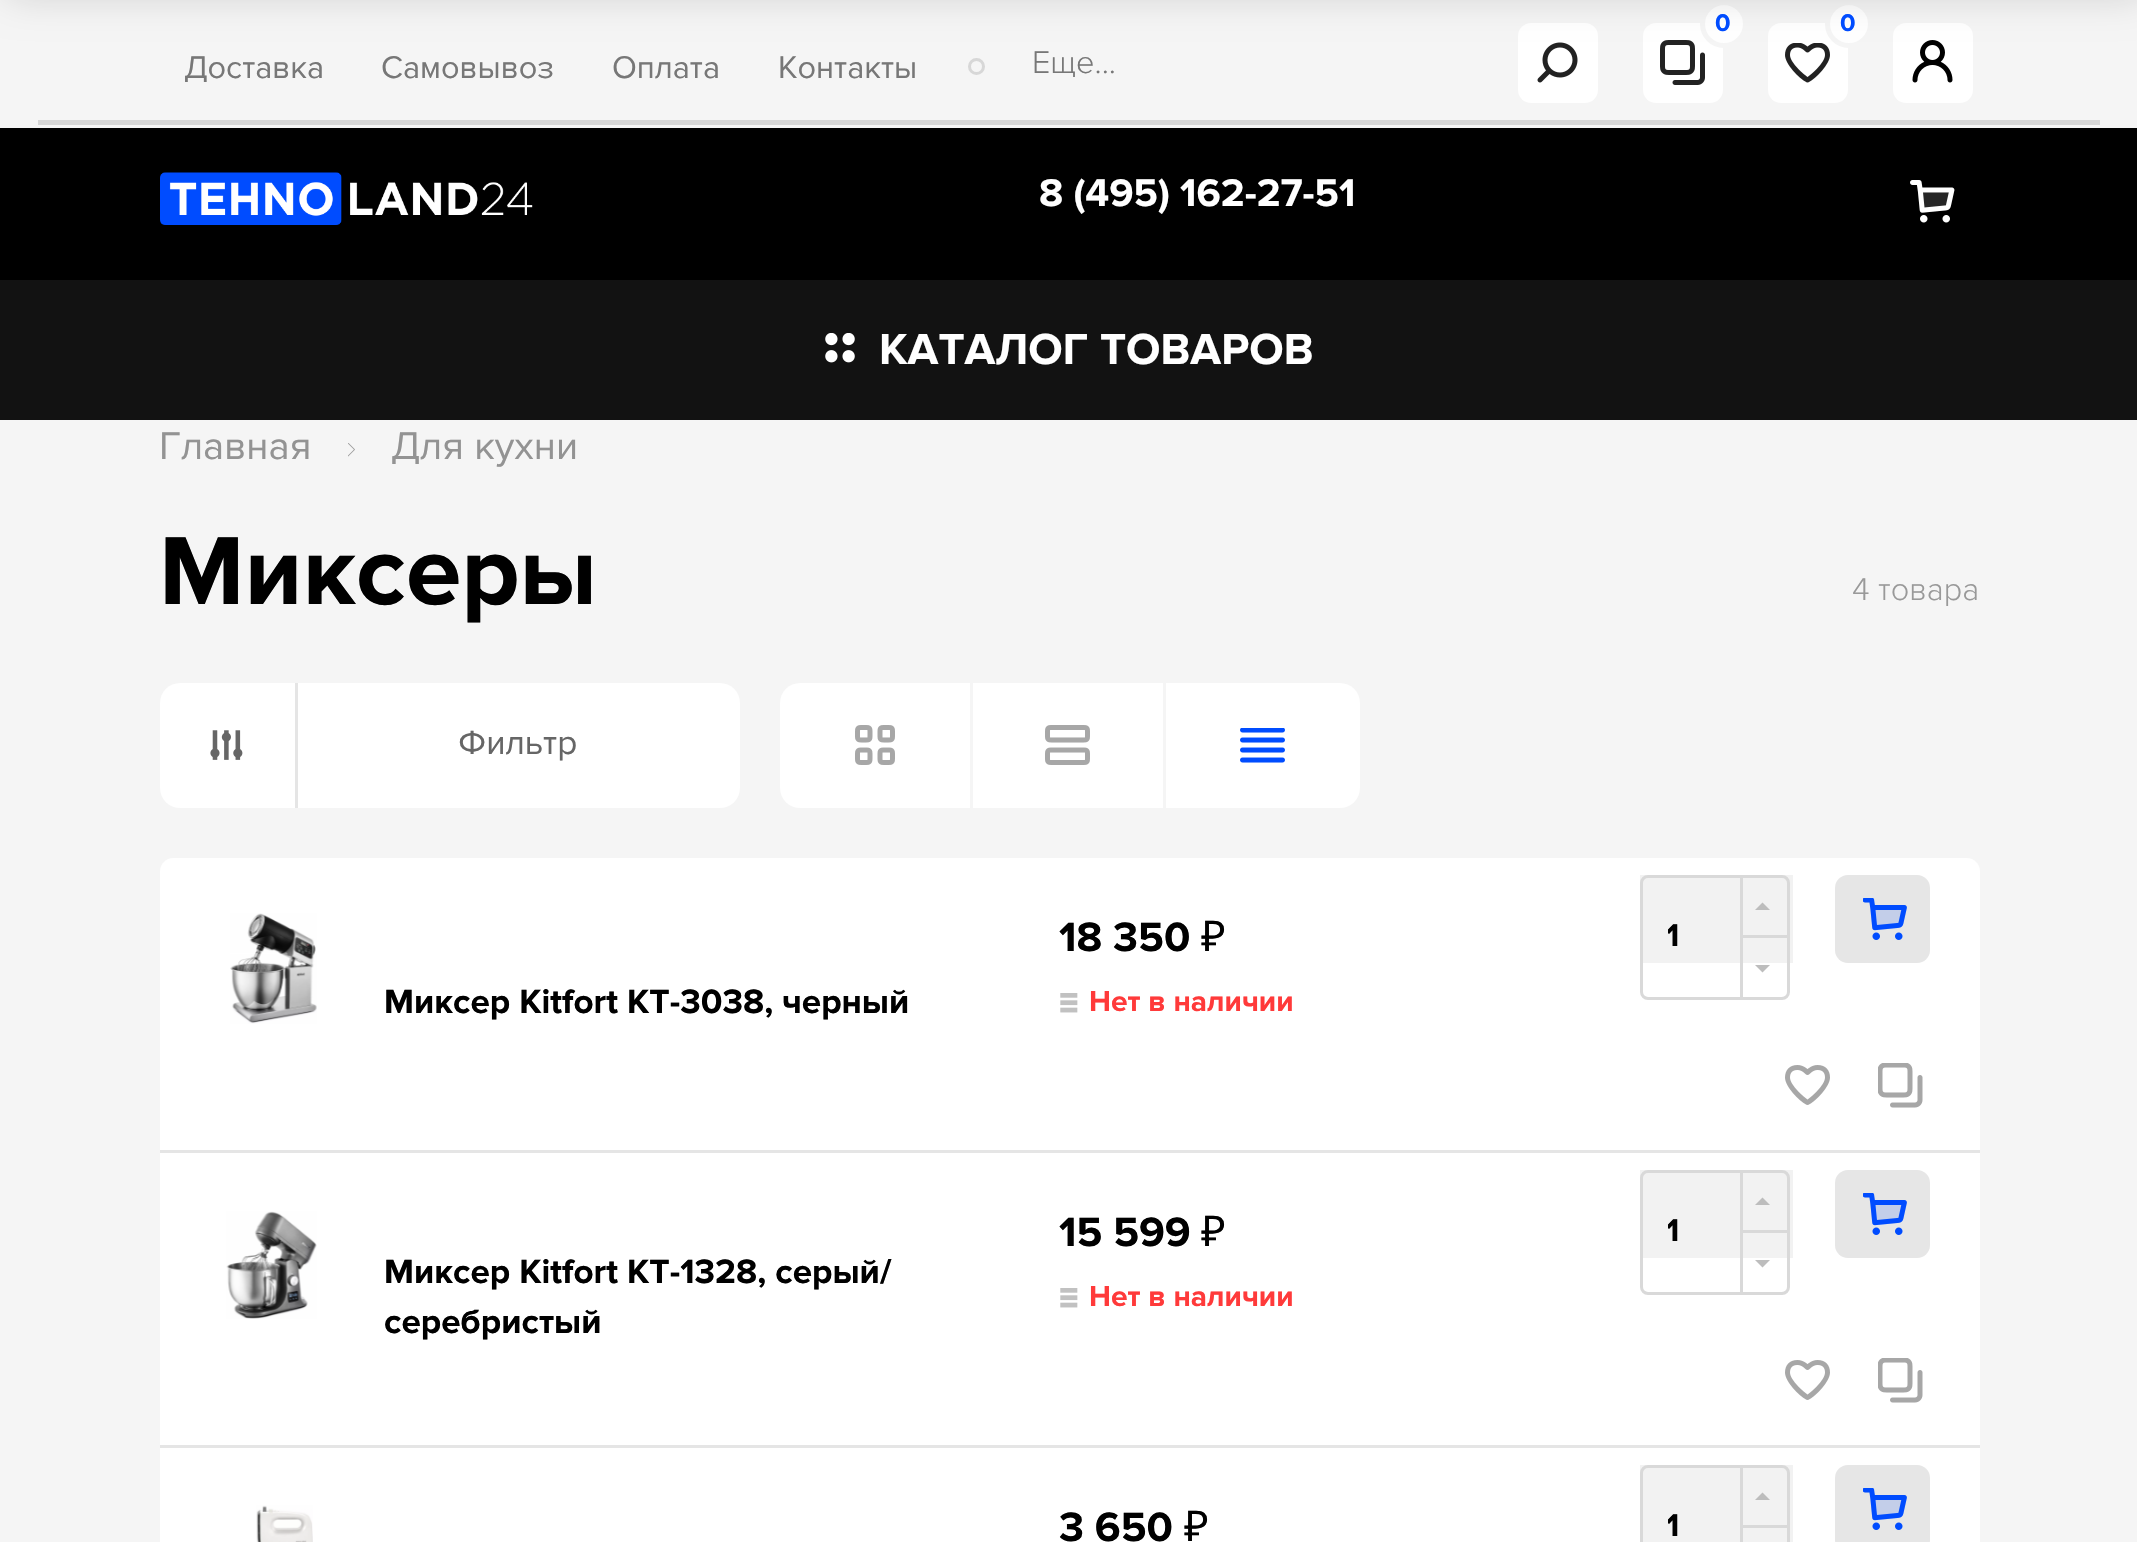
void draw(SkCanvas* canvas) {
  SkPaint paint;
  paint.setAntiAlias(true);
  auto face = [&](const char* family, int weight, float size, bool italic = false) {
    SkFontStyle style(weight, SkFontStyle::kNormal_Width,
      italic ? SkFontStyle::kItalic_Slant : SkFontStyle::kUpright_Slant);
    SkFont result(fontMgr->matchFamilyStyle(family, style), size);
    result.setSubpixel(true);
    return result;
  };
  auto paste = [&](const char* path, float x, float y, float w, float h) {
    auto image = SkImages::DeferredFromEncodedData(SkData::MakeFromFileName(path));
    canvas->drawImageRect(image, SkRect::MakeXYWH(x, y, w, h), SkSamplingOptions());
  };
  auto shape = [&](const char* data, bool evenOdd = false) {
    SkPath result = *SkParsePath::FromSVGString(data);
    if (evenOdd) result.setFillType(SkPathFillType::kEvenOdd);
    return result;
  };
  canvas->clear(0xfff5f5f5);
  paint.setColor(0xffffffff);
  canvas->drawRoundRect(SkRect::MakeXYWH(1518, 23, 80, 80), 13, 13, paint);
  paste("img/1.png", 1537, 42, 41, 41);
  canvas->drawRoundRect(SkRect::MakeXYWH(1643, 23, 80, 80), 13, 13, paint);
  paste("img/2.png", 1660, 40, 45, 45);
  canvas->drawCircle(1724, 24, 21.5f, paint);
  paint.setStroke(true);
  paint.setStrokeWidth(5);
  paint.setColor(0xfff5f5f5);
  canvas->drawCircle(1724, 24, 21.5f, paint);
  paint.setStroke(false);
  paint.setColor(0xffffffff);
  canvas->drawRoundRect(SkRect::MakeXYWH(1768, 23, 80, 80), 13, 13, paint);
  paste("img/3.png", 1785, 43, 45, 40);
  canvas->drawCircle(1849, 24, 21.5f, paint);
  paint.setStroke(true);
  paint.setColor(0xfff5f5f5);
  canvas->drawCircle(1849, 24, 21.5f, paint);
  paint.setStroke(false);
  paint.setColor(0xffffffff);
  canvas->drawRoundRect(SkRect::MakeXYWH(1893, 23, 80, 80), 13, 13, paint);
  paste("img/4.png", 1912, 40, 41, 43);
  paint.setStroke(true);
  paint.setStrokeWidth(3);
  paint.setColor(0xffd7d7d7);
  canvas->drawCircle(976.5f, 66.5f, 7, paint);
  paint.setStroke(false);
  paint.setColor(0xff000000);
  canvas->drawRect(SkRect::MakeXYWH(0, 128, 2137, 152), paint);
  paste("img/5.png", 160, 172, 373, 53);
  paste("img/6.png", 1910, 180, 45, 43);
  paint.setColor(0xffd6d6d6);
  canvas->drawRect(SkRect::MakeXYWH(38, 120, 2062, 5), paint);
  paint.setColor(0xff121212);
  canvas->drawRect(SkRect::MakeXYWH(0, 280, 2137, 140), paint);
  paste("img/7.png", 825, 333, 30, 30);
  paint.setColor(0x2e000000);
  paint.setMaskFilter(SkMaskFilter::MakeBlur(kNormal_SkBlurStyle, 20));
  canvas->drawRect(SkRect::MakeXYWH(8, -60, 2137, 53), paint);
  paint.setMaskFilter(nullptr);
  paste("img/8.png", 348, 443, 7, 14);
  paint.setColor(0xffffffff);
  canvas->drawRoundRect(SkRect::MakeXYWH(160, 683, 580, 125), 20, 20, paint);
  paint.setColor(0xffe5e5e5);
  canvas->drawRect(SkRect::MakeXYWH(295, 683, 3, 125), paint);
  paste("img/9.png", 210, 730, 33, 30);
  paint.setColor(0xffffffff);
  canvas->drawRoundRect(SkRect::MakeXYWH(780, 683, 580, 125), 20, 20, paint);
  paint.setColor(0xfff5f5f5);
  canvas->drawRect(SkRect::MakeXYWH(970, 683, 3, 125), paint);
  paste("img/10.png", 855, 725, 40, 40);
  canvas->drawRect(SkRect::MakeXYWH(1163, 683, 3, 125), paint);
  paste("img/11.png", 1045, 725, 45, 40);
  paste("img/12.png", 1240, 728, 45, 35);
  paint.setColor(0xffffffff);
  canvas->drawPath(shape("M173 858H1967C1974 858 1980 864 1980 871V1153H160V871C160 864 166 858 173 858Z"), paint);
  paint.setColor(0xffe5e5e5);
  canvas->drawRect(SkRect::MakeXYWH(160, 1150, 1820, 3), paint);
  paste("img/13.png", 230, 913, 87, 111);
  paste("img/14.png", 1060, 993, 18, 20);
  paint.setColor(0xfff2f2f2);
  canvas->drawRect(SkRect::MakeXYWH(1640, 875, 153, 88), paint);
  paint.setStroke(true);
  paint.setColor(0xffd9d9d9);
  canvas->drawRoundRect(SkRect::MakeXYWH(1641.5f, 876.5f, 147, 122), 6.5f, 6.5f, paint);
  paint.setStroke(false);
  canvas->drawRect(SkRect::MakeXYWH(1740, 875, 3, 123), paint);
  canvas->drawRect(SkRect::MakeXYWH(1743, 935, 47, 3), paint);
  paint.setColor(0xffbdbdbd);
  canvas->drawPath(shape("M1770 910H1755L1762.5 902.5Z"), paint);
  canvas->drawPath(shape("M1755 965H1770L1762.5 972.5Z"), paint);
  paint.setColor(0xffe6e6e6);
  canvas->drawRoundRect(SkRect::MakeXYWH(1835, 875, 95, 88), 13, 13, paint);
  paste("img/15.png", 1863, 898, 44, 42);
  paste("img/16.png", 1785, 1065, 45, 40);
  paste("img/17.png", 1878, 1063, 45, 45);
  paint.setColor(0xffffffff);
  canvas->drawRect(SkRect::MakeXYWH(160, 1153, 1820, 292), paint);
  paint.setColor(0xffe5e5e5);
  canvas->drawRect(SkRect::MakeXYWH(160, 1445, 1820, 3), paint);
  paste("img/18.png", 226, 1211, 91, 108);
  paste("img/14.png", 1060, 1288, 18, 20);
  paint.setColor(0xfff2f2f2);
  canvas->drawRect(SkRect::MakeXYWH(1640, 1170, 153, 88), paint);
  paint.setStroke(true);
  paint.setColor(0xffd9d9d9);
  canvas->drawRoundRect(SkRect::MakeXYWH(1641.5f, 1171.5f, 147, 122), 6.5f, 6.5f, paint);
  paint.setStroke(false);
  canvas->drawRect(SkRect::MakeXYWH(1740, 1170, 3, 123), paint);
  canvas->drawRect(SkRect::MakeXYWH(1743, 1230, 47, 3), paint);
  paint.setColor(0xffbdbdbd);
  canvas->drawPath(shape("M1770 1205H1755L1762.5 1197.5Z"), paint);
  canvas->drawPath(shape("M1755 1260H1770L1762.5 1267.5Z"), paint);
  paint.setColor(0xffe6e6e6);
  canvas->drawRoundRect(SkRect::MakeXYWH(1835, 1170, 95, 88), 13, 13, paint);
  paste("img/15.png", 1863, 1193, 44, 42);
  paste("img/16.png", 1785, 1360, 45, 40);
  paste("img/17.png", 1878, 1358, 45, 45);
  paint.setColor(0xffffffff);
  canvas->drawRect(SkRect::MakeXYWH(160, 1448, 1820, 94), paint);
  paste("img/19.png", 256, 1505, 57, 37);
  paint.setColor(0xfff2f2f2);
  canvas->drawRect(SkRect::MakeXYWH(1640, 1465, 153, 77), paint);
  paint.setStroke(true);
  paint.setColor(0xffd9d9d9);
  canvas->drawRoundRect(SkRect::MakeXYWH(1641.5f, 1466.5f, 147, 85), 6.5f, 6.5f, paint);
  paint.setStroke(false);
  canvas->drawRect(SkRect::MakeXYWH(1740, 1465, 3, 77), paint);
  canvas->drawRect(SkRect::MakeXYWH(1743, 1525, 47, 3), paint);
  paint.setColor(0xffbdbdbd);
  canvas->drawPath(shape("M1770 1500H1755L1762.5 1492.5Z"), paint);
  paint.setColor(0xffe6e6e6);
  canvas->drawRoundRect(SkRect::MakeXYWH(1835, 1465, 95, 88), 13, 13, paint);
  paste("img/15.png", 1863, 1488, 44, 42);
  auto f0 = face("Proxima Nova", 700, 25);
  paint.setColor(0xff004cff);
  canvas->drawString("0", 1715, 31, f0, paint);
  canvas->drawString("0", 1840, 31, f0, paint);
  auto f1 = face("Proxima Nova", 400, 32.5f);
  paint.setColor(0xff777777);
  {
    const struct { const char* s; float x, y; } items[] = {
      {"Доставка", 184, 78},
      {"Самовывоз", 381, 78},
      {"Оплата", 612, 78},
      {"Контакты", 778, 78},
    };
    for (auto [s, x, y] : items) {
      canvas->drawString(s, x, y, f1, paint);
    }
  }
  auto f2 = face("Proxima Nova", 300, 32.5f);
  canvas->drawString("Еще...", 1032, 73, f2, paint);
  auto f3 = face("Proxima Nova", 700, 40);
  paint.setColor(0xffffffff);
  canvas->drawString("8 (495) 162-27-51", 1039, 206, f3, paint);
  auto f4 = face("Proxima Nova", 700, 45);
  canvas->drawString("КАТАЛОГ ТОВАРОВ", 879, 364, f4, paint);
  auto f5 = face("Proxima Nova", 400, 40);
  paint.setColor(0xff939393);
  canvas->drawString("Главная", 159, 459, f5, paint);
  canvas->drawString("Для кухни", 391, 459, f5, paint);
  auto f6 = face("Proxima Nova", 700, 100);
  paint.setColor(0xff000000);
  canvas->drawString("Миксеры", 159, 604, f6, paint);
  paint.setColor(0xff999999);
  canvas->drawString("4 товара", 1852, 600, f2, paint);
  auto f7 = face("Proxima Nova", 400, 35);
  paint.setColor(0xff666666);
  canvas->drawString("Фильтр", 458, 754, f7, paint);
  auto f8 = face("Proxima Nova", 700, 35);
  paint.setColor(0xff000000);
  canvas->drawString("Миксер Kitfort КТ-3038, черный", 384, 1013, f8, paint);
  auto f9 = face("Proxima Nova", 700, 42.5f);
  canvas->drawString("18 350", 1059, 951, f9, paint);
  auto f10 = face("Noto Sans", 400, 42.5f);
  canvas->drawString("₽", 1201, 951, f10, paint);
  auto f11 = face("Proxima Nova", 700, 30);
  paint.setColor(0xffff3a3a);
  canvas->drawString("Нет в наличии", 1089, 1011, f11, paint);
  canvas->save();
  canvas->clipRect(SkRect::MakeXYWH(1668, 918, 70, 40));
  auto f12 = face("Proxima Nova", 700, 32.5f);
  paint.setColor(0xff000000);
  canvas->drawString("1", 1666, 946, f12, paint);
  canvas->restore();
  canvas->drawString("Миксер Kitfort KT-1328, серый/", 384, 1283, f8, paint);
  canvas->drawString("серебристый", 384, 1333, f8, paint);
  canvas->drawString("15 599", 1059, 1246, f9, paint);
  canvas->drawString("₽", 1201, 1246, f10, paint);
  paint.setColor(0xffff3a3a);
  canvas->drawString("Нет в наличии", 1089, 1306, f11, paint);
  canvas->save();
  canvas->clipRect(SkRect::MakeXYWH(1668, 1213, 70, 40));
  paint.setColor(0xff000000);
  canvas->drawString("1", 1666, 1241, f12, paint);
  canvas->restore();
  canvas->drawString("3 650", 1059, 1541, f9, paint);
  canvas->drawString("₽", 1184, 1541, f10, paint);
  canvas->save();
  canvas->clipRect(SkRect::MakeXYWH(1668, 1508, 70, 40));
  canvas->drawString("1", 1666, 1536, f12, paint);
  canvas->restore();
}
